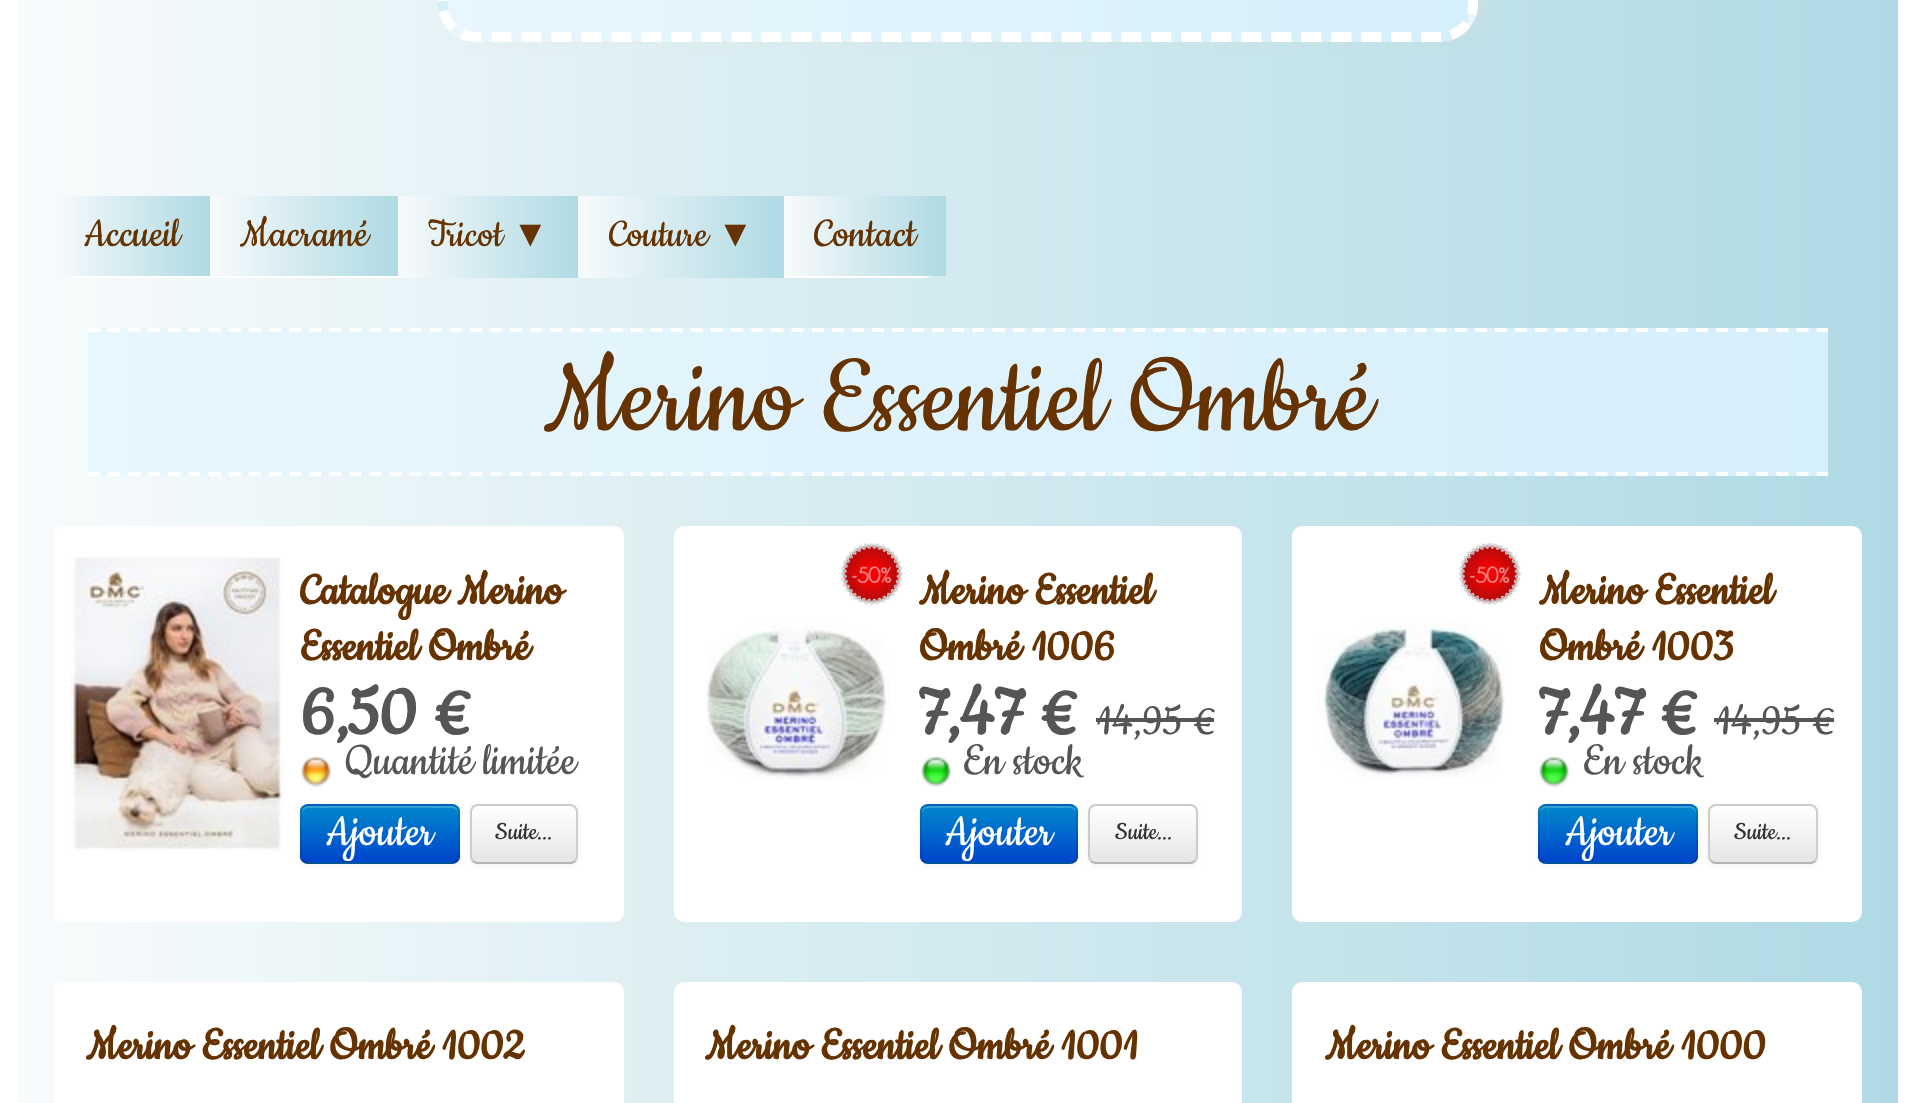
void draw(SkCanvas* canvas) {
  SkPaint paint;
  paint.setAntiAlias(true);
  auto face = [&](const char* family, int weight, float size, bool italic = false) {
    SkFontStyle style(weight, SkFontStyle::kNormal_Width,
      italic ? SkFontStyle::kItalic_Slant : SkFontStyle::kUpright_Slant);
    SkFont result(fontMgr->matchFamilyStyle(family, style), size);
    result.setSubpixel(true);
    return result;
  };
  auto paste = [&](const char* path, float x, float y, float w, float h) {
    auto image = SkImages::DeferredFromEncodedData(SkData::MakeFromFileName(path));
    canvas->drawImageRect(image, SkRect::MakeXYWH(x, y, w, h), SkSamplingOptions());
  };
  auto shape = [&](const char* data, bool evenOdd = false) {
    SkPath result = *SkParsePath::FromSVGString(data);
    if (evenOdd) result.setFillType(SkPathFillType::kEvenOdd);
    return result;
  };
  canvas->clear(0xffffffff);
  {
    const SkColor colors[] = {0xfff8fbfc, 0xffd9edf2, 0xffafdae4};
    const float stops[] = {0, 0.4f, 1};
    const SkPoint ends[] = {{18, 875}, {1898, 875}};
    paint.setShader(SkGradientShader::MakeLinear(ends, colors, stops, 3, SkTileMode::kClamp));
    paint.setAlpha(255);
  }
  canvas->drawRect(SkRect::MakeXYWH(18, 0, 1880, 1103), paint);
  paint.setShader(nullptr);
  paint.setColor(0xffdedede);
  paint.setMaskFilter(SkMaskFilter::MakeBlur(kNormal_SkBlurStyle, 12));
  canvas->drawRoundRect(SkRect::MakeXYWH(470, -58, 1008, 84), 22, 22, paint);
  paint.setMaskFilter(nullptr);
  canvas->save();
  canvas->clipPath(shape("M476-228H1440C1461-228 1478-211 1478-190V4C1478 25 1461 42 1440 42H476C455 42 438 25 438 4V-190C438-211 455-228 476-228Z"), true);
  {
    const SkColor colors[] = {0xffe8f6fd, 0xffd5effb};
    const float stops[] = {0, 1};
    const SkPoint ends[] = {{-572, -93}, {448, -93}};
    paint.setShader(SkGradientShader::MakeLinear(ends, colors, stops, 2, SkTileMode::kClamp));
    paint.setAlpha(255);
  }
  canvas->drawRect(SkRect::MakeXYWH(438, 1, 10, 29), paint);
  {
    const SkColor colors[] = {0xffe8f6fd, 0xffd5effb};
    const float stops[] = {0, 1};
    const SkPoint ends[] = {{448, -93}, {1468, -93}};
    paint.setShader(SkGradientShader::MakeLinear(ends, colors, stops, 2, SkTileMode::kClamp));
    paint.setAlpha(255);
  }
  canvas->drawRect(SkRect::MakeXYWH(448, 0, 1020, 42), paint);
  {
    const SkColor colors[] = {0xffe8f6fd, 0xffd5effb};
    const float stops[] = {0, 1};
    const SkPoint ends[] = {{1468, -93}, {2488, -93}};
    paint.setShader(SkGradientShader::MakeLinear(ends, colors, stops, 2, SkTileMode::kClamp));
    paint.setAlpha(255);
  }
  canvas->drawRect(SkRect::MakeXYWH(1468, 4, 10, 26), paint);
  canvas->restore();
  paint.setStroke(true);
  paint.setStrokeWidth(10);
  paint.setShader(nullptr);
  paint.setColor(0xffffffff);
  paint.setPathEffect(SkDashPathEffect::Make({{20, 10}}, 0));
  canvas->drawPath(shape("M476-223H1440C1458-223 1473-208 1473-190V4C1473 22 1458 37 1440 37H476C458 37 443 22 443 4V-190C443-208 458-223 476-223Z"), paint);
  paint.setPathEffect(nullptr);
  paint.setStroke(false);
  canvas->drawRoundRect(SkRect::MakeXYWH(54, 196, 892, 82), 24, 24, paint);
  {
    const SkColor colors[] = {0xfff8fbfc, 0xffd9edf2, 0xffafdae4};
    const float stops[] = {0, 0.4f, 1};
    const SkPoint ends[] = {{54, 236}, {210, 236}};
    paint.setShader(SkGradientShader::MakeLinear(ends, colors, stops, 3, SkTileMode::kClamp));
    paint.setAlpha(255);
  }
  canvas->drawRect(SkRect::MakeXYWH(54, 196, 156, 80), paint);
  {
    const SkColor colors[] = {0xfff8fbfc, 0xffd9edf2, 0xffafdae4};
    const float stops[] = {0, 0.4f, 1};
    const SkPoint ends[] = {{210, 236}, {398, 236}};
    paint.setShader(SkGradientShader::MakeLinear(ends, colors, stops, 3, SkTileMode::kClamp));
    paint.setAlpha(255);
  }
  canvas->drawRect(SkRect::MakeXYWH(210, 196, 188, 80), paint);
  {
    const SkColor colors[] = {0xfff8fbfc, 0xffd9edf2, 0xffafdae4};
    const float stops[] = {0, 0.4f, 1};
    const SkPoint ends[] = {{398, 237}, {578, 237}};
    paint.setShader(SkGradientShader::MakeLinear(ends, colors, stops, 3, SkTileMode::kClamp));
    paint.setAlpha(255);
  }
  canvas->drawRect(SkRect::MakeXYWH(398, 196, 180, 82), paint);
  {
    const SkColor colors[] = {0xfff8fbfc, 0xffd9edf2, 0xffafdae4};
    const float stops[] = {0, 0.4f, 1};
    const SkPoint ends[] = {{578, 237}, {784, 237}};
    paint.setShader(SkGradientShader::MakeLinear(ends, colors, stops, 3, SkTileMode::kClamp));
    paint.setAlpha(255);
  }
  canvas->drawRect(SkRect::MakeXYWH(578, 196, 206, 82), paint);
  {
    const SkColor colors[] = {0xfff8fbfc, 0xffd9edf2, 0xffafdae4};
    const float stops[] = {0, 0.4f, 1};
    const SkPoint ends[] = {{784, 236}, {946, 236}};
    paint.setShader(SkGradientShader::MakeLinear(ends, colors, stops, 3, SkTileMode::kClamp));
    paint.setAlpha(255);
  }
  canvas->drawRect(SkRect::MakeXYWH(784, 196, 162, 80), paint);
  {
    const SkColor colors[] = {0xffe8f6fd, 0xffd5effb};
    const float stops[] = {0, 1};
    const SkPoint ends[] = {{88, 402}, {1828, 402}};
    paint.setShader(SkGradientShader::MakeLinear(ends, colors, stops, 2, SkTileMode::kClamp));
    paint.setAlpha(255);
  }
  canvas->drawRect(SkRect::MakeXYWH(88, 328, 1740, 148), paint);
  paint.setStroke(true);
  paint.setStrokeWidth(4);
  paint.setShader(nullptr);
  paint.setColor(0xffffffff);
  paint.setPathEffect(SkDashPathEffect::Make({{12, 8.1f}}, 0));
  canvas->drawPath(shape("M88 330H1828"), paint);
  paint.setPathEffect(nullptr);
  paint.setPathEffect(SkDashPathEffect::Make({{12, 8.1f}}, 0));
  canvas->drawPath(shape("M88 474H1828"), paint);
  paint.setPathEffect(nullptr);
  paint.setStroke(false);
  canvas->drawRoundRect(SkRect::MakeXYWH(54, 526, 570, 396), 10, 10, paint);
  paste("img/1.png", 70, 557, 214, 294);
  paste("img/2.png", 301, 756, 30, 32);
  paint.setColor(0x0d000000);
  paint.setMaskFilter(SkMaskFilter::MakeBlur(kNormal_SkBlurStyle, 2));
  canvas->drawRoundRect(SkRect::MakeXYWH(300, 806, 160, 60), 8, 8, paint);
  paint.setMaskFilter(nullptr);
  paint.setColor(0xff006dcc);
  canvas->drawRoundRect(SkRect::MakeXYWH(300, 804, 160, 60), 8, 8, paint);
  canvas->save();
  canvas->clipPath(shape("M308 804H452C456.5 804 460 807.5 460 812V856C460 860.5 456.5 864 452 864H308C303.5 864 300 860.5 300 856V812C300 807.5 303.5 804 308 804Z"), true);
  {
    const SkColor colors[] = {0xff0088cc, 0xff0044cc};
    const float stops[] = {0, 1};
    const SkPoint ends[] = {{380, 806}, {380, 862}};
    paint.setShader(SkGradientShader::MakeLinear(ends, colors, stops, 2, SkTileMode::kClamp));
    paint.setAlpha(255);
  }
  canvas->drawRect(SkRect::MakeXYWH(300, 806, 160, 56), paint);
  canvas->restore();
  paint.setShader(nullptr);
  paint.setColor(0x33ffffff);
  canvas->drawPath(shape("M308 808H452C455 808 458 811 458 814V812C458 809 455 806 452 806H308C305 806 302 809 302 812V814C302 811 305 808 308 808Z"), paint);
  paint.setStroke(true);
  paint.setStrokeWidth(2);
  paint.setColor(0x40000000);
  canvas->drawPath(shape("M457 861C455.5 862.5 454 863 452 863H308C306 863 304.5 862.5 303 861"), paint);
  paint.setColor(0x1a000000);
  canvas->drawPath(shape("M303 861C300 858 301 852.5 301 848.5V834C301 800 296.5 805 332 805H428C463.5 805 459 800 459 834V848.5C459 852.5 460 858 457 861"), paint);
  paint.setStroke(false);
  paint.setColor(0x0d000000);
  paint.setMaskFilter(SkMaskFilter::MakeBlur(kNormal_SkBlurStyle, 2));
  canvas->drawRoundRect(SkRect::MakeXYWH(470, 806, 108, 60), 8, 8, paint);
  paint.setMaskFilter(nullptr);
  canvas->save();
  canvas->clipPath(shape("M478 804H570C574.5 804 578 807.5 578 812V856C578 860.5 574.5 864 570 864H478C473.5 864 470 860.5 470 856V812C470 807.5 473.5 804 478 804Z"), true);
  {
    const SkColor colors[] = {0xffffffff, 0xffe6e6e6};
    const float stops[] = {0, 1};
    const SkPoint ends[] = {{524, 806}, {524, 862}};
    paint.setShader(SkGradientShader::MakeLinear(ends, colors, stops, 2, SkTileMode::kClamp));
    paint.setAlpha(255);
  }
  canvas->drawRect(SkRect::MakeXYWH(470, 806, 108, 56), paint);
  canvas->restore();
  paint.setStroke(true);
  paint.setShader(nullptr);
  paint.setColor(0xffb3b3b3);
  canvas->drawPath(shape("M575 861C573.5 862.5 572 863 570 863H478C476 863 474.5 862.5 473 861"), paint);
  paint.setColor(0xffcccccc);
  canvas->drawPath(shape("M473 861C471.5 859.5 471 858 471 856V812C471 810 471.5 808.5 473 807C474.5 805.5 476 805 478 805H570C572 805 573.5 805.5 575 807C576.5 808.5 577 810 577 812V856C577 858 576.5 859.5 575 861"), paint);
  paint.setStroke(false);
  paint.setColor(0xffffffff);
  canvas->drawRoundRect(SkRect::MakeXYWH(674, 526, 568, 396), 10, 10, paint);
  paste("img/3.png", 841, 543, 63, 63);
  paste("img/4.png", 705, 622, 185, 158);
  paint.setColor(0xff555555);
  canvas->drawRect(SkRect::MakeXYWH(1096, 718, 118, 4), paint);
  paste("img/5.png", 921, 756, 30, 32);
  paint.setColor(0x0d000000);
  paint.setMaskFilter(SkMaskFilter::MakeBlur(kNormal_SkBlurStyle, 2));
  canvas->drawRoundRect(SkRect::MakeXYWH(920, 806, 158, 60), 8, 8, paint);
  paint.setMaskFilter(nullptr);
  paint.setColor(0xff006dcc);
  canvas->drawRoundRect(SkRect::MakeXYWH(920, 804, 158, 60), 8, 8, paint);
  canvas->save();
  canvas->clipPath(shape("M928 804H1070C1074.5 804 1078 807.5 1078 812V856C1078 860.5 1074.5 864 1070 864H928C923.5 864 920 860.5 920 856V812C920 807.5 923.5 804 928 804Z"), true);
  {
    const SkColor colors[] = {0xff0088cc, 0xff0044cc};
    const float stops[] = {0, 1};
    const SkPoint ends[] = {{999, 806}, {999, 862}};
    paint.setShader(SkGradientShader::MakeLinear(ends, colors, stops, 2, SkTileMode::kClamp));
    paint.setAlpha(255);
  }
  canvas->drawRect(SkRect::MakeXYWH(920, 806, 158, 56), paint);
  canvas->restore();
  paint.setShader(nullptr);
  paint.setColor(0x33ffffff);
  canvas->drawPath(shape("M928 808H1070C1073 808 1076 811 1076 814V812C1076 809 1073 806 1070 806H928C925 806 922 809 922 812V814C922 811 925 808 928 808Z"), paint);
  paint.setStroke(true);
  paint.setColor(0x40000000);
  canvas->drawPath(shape("M1075 861C1073.5 862.5 1072 863 1070 863H928C926 863 924.5 862.5 923 861"), paint);
  paint.setColor(0x1a000000);
  canvas->drawPath(shape("M923 861C920 858 921 852.5 921 848.5V834C921 800.5 916.5 805 951.5 805H1046.5C1081.5 805 1077 800.5 1077 834V848.5C1077 852.5 1078 858 1075 861"), paint);
  paint.setStroke(false);
  paint.setColor(0x0d000000);
  paint.setMaskFilter(SkMaskFilter::MakeBlur(kNormal_SkBlurStyle, 2));
  canvas->drawRoundRect(SkRect::MakeXYWH(1088, 806, 110, 60), 8, 8, paint);
  paint.setMaskFilter(nullptr);
  canvas->save();
  canvas->clipPath(shape("M1096 804H1190C1194.5 804 1198 807.5 1198 812V856C1198 860.5 1194.5 864 1190 864H1096C1091.5 864 1088 860.5 1088 856V812C1088 807.5 1091.5 804 1096 804Z"), true);
  {
    const SkColor colors[] = {0xffffffff, 0xffe6e6e6};
    const float stops[] = {0, 1};
    const SkPoint ends[] = {{1143, 806}, {1143, 862}};
    paint.setShader(SkGradientShader::MakeLinear(ends, colors, stops, 2, SkTileMode::kClamp));
    paint.setAlpha(255);
  }
  canvas->drawRect(SkRect::MakeXYWH(1088, 806, 110, 56), paint);
  canvas->restore();
  paint.setStroke(true);
  paint.setShader(nullptr);
  paint.setColor(0xffb3b3b3);
  canvas->drawPath(shape("M1195 861C1193.5 862.5 1192 863 1190 863H1096C1094 863 1092.5 862.5 1091 861"), paint);
  paint.setColor(0xffcccccc);
  canvas->drawPath(shape("M1091 861C1089.5 859.5 1089 858 1089 856V812C1089 810 1089.5 808.5 1091 807C1092.5 805.5 1094 805 1096 805H1190C1192 805 1193.5 805.5 1195 807C1196.5 808.5 1197 810 1197 812V856C1197 858 1196.5 859.5 1195 861"), paint);
  paint.setStroke(false);
  paint.setColor(0xffffffff);
  canvas->drawRoundRect(SkRect::MakeXYWH(1292, 526, 570, 396), 10, 10, paint);
  paste("img/3.png", 1459, 543, 63, 63);
  paste("img/6.png", 1316, 622, 189, 156);
  paint.setColor(0xff555555);
  canvas->drawRect(SkRect::MakeXYWH(1714, 718, 120, 4), paint);
  paste("img/5.png", 1539, 756, 30, 32);
  paint.setColor(0x0d000000);
  paint.setMaskFilter(SkMaskFilter::MakeBlur(kNormal_SkBlurStyle, 2));
  canvas->drawRoundRect(SkRect::MakeXYWH(1538, 806, 160, 60), 8, 8, paint);
  paint.setMaskFilter(nullptr);
  paint.setColor(0xff006dcc);
  canvas->drawRoundRect(SkRect::MakeXYWH(1538, 804, 160, 60), 8, 8, paint);
  canvas->save();
  canvas->clipPath(shape("M1546 804H1690C1694.5 804 1698 807.5 1698 812V856C1698 860.5 1694.5 864 1690 864H1546C1541.5 864 1538 860.5 1538 856V812C1538 807.5 1541.5 804 1546 804Z"), true);
  {
    const SkColor colors[] = {0xff0088cc, 0xff0044cc};
    const float stops[] = {0, 1};
    const SkPoint ends[] = {{1618, 806}, {1618, 862}};
    paint.setShader(SkGradientShader::MakeLinear(ends, colors, stops, 2, SkTileMode::kClamp));
    paint.setAlpha(255);
  }
  canvas->drawRect(SkRect::MakeXYWH(1538, 806, 160, 56), paint);
  canvas->restore();
  paint.setShader(nullptr);
  paint.setColor(0x33ffffff);
  canvas->drawPath(shape("M1546 808H1690C1693 808 1696 811 1696 814V812C1696 809 1693 806 1690 806H1546C1543 806 1540 809 1540 812V814C1540 811 1543 808 1546 808Z"), paint);
  paint.setStroke(true);
  paint.setColor(0x40000000);
  canvas->drawPath(shape("M1695 861C1693.5 862.5 1692 863 1690 863H1546C1544 863 1542.5 862.5 1541 861"), paint);
  paint.setColor(0x1a000000);
  canvas->drawPath(shape("M1541 861C1538 858 1539 852.5 1539 848.5V834C1539 800 1534.5 805 1570 805H1666C1701.5 805 1697 800 1697 834V848.5C1697 852.5 1698 858 1695 861"), paint);
  paint.setStroke(false);
  paint.setColor(0x0d000000);
  paint.setMaskFilter(SkMaskFilter::MakeBlur(kNormal_SkBlurStyle, 2));
  canvas->drawRoundRect(SkRect::MakeXYWH(1708, 806, 110, 60), 8, 8, paint);
  paint.setMaskFilter(nullptr);
  canvas->save();
  canvas->clipPath(shape("M1716 804H1810C1814.5 804 1818 807.5 1818 812V856C1818 860.5 1814.5 864 1810 864H1716C1711.5 864 1708 860.5 1708 856V812C1708 807.5 1711.5 804 1716 804Z"), true);
  {
    const SkColor colors[] = {0xffffffff, 0xffe6e6e6};
    const float stops[] = {0, 1};
    const SkPoint ends[] = {{1763, 806}, {1763, 862}};
    paint.setShader(SkGradientShader::MakeLinear(ends, colors, stops, 2, SkTileMode::kClamp));
    paint.setAlpha(255);
  }
  canvas->drawRect(SkRect::MakeXYWH(1708, 806, 110, 56), paint);
  canvas->restore();
  paint.setStroke(true);
  paint.setShader(nullptr);
  paint.setColor(0xffb3b3b3);
  canvas->drawPath(shape("M1815 861C1813.5 862.5 1812 863 1810 863H1716C1714 863 1712.5 862.5 1711 861"), paint);
  paint.setColor(0xffcccccc);
  canvas->drawPath(shape("M1711 861C1709.5 859.5 1709 858 1709 856V812C1709 810 1709.5 808.5 1711 807C1712.5 805.5 1714 805 1716 805H1810C1812 805 1813.5 805.5 1815 807C1816.5 808.5 1817 810 1817 812V856C1817 858 1816.5 859.5 1815 861"), paint);
  paint.setStroke(false);
  paint.setColor(0xffffffff);
  canvas->drawRoundRect(SkRect::MakeXYWH(54, 982, 570, 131), 10, 10, paint);
  canvas->drawRoundRect(SkRect::MakeXYWH(674, 982, 568, 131), 10, 10, paint);
  canvas->drawRoundRect(SkRect::MakeXYWH(1292, 982, 570, 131), 10, 10, paint);
  auto f0 = face("Cookie", 400, 46);
  paint.setColor(0xff663300);
  canvas->drawString("Accueil", 84, 246, f0, paint);
  canvas->drawString("Macramé", 240, 246, f0, paint);
  auto f1 = face("Cookie", 400, 44);
  canvas->drawString("Tricot", 428, 246, f1, paint);
  auto f2 = face("Liberation Serif", 400, 37);
  canvas->drawString("▼", 512, 246, f2, paint);
  canvas->drawString("Couture", 609, 246, f1, paint);
  canvas->drawString("▼", 717, 246, f2, paint);
  canvas->drawString("Contact", 814, 246, f0, paint);
  auto f3 = face("Cookie", 400, 120);
  canvas->drawString("Merino Essentiel Ombré", 544, 430, f3, paint);
  auto f4 = face("Cookie", 700, 50);
  canvas->drawString("Catalogue Merino", 300, 604, f4, paint);
  canvas->drawString("Essentiel Ombré", 300, 660, f4, paint);
  auto f5 = face("Cookie", 700, 80);
  paint.setColor(0xff555555);
  canvas->drawString("6,50 €", 300, 734, f5, paint);
  auto f6 = face("Cookie", 400, 50);
  canvas->drawString("Quantité limitée", 344, 774, f6, paint);
  paint.setColor(0xffffffff);
  canvas->drawString("Ajouter", 326, 845, f6, paint);
  auto f7 = face("Cookie", 400, 28);
  paint.setColor(0xff333333);
  canvas->drawString("Suite...", 495, 839, f7, paint);
  paint.setColor(0xff663300);
  canvas->drawString("Merino Essentiel", 919, 604, f4, paint);
  canvas->drawString("Ombré 1006", 919, 660, f4, paint);
  paint.setColor(0xff555555);
  canvas->drawString("7,47 €", 919, 734, f5, paint);
  canvas->drawString("14,95 €", 1096, 734, f6, paint);
  canvas->drawString("En stock", 963, 774, f6, paint);
  paint.setColor(0xffffffff);
  canvas->drawString("Ajouter", 945, 845, f6, paint);
  paint.setColor(0xff333333);
  canvas->drawString("Suite...", 1115, 839, f7, paint);
  paint.setColor(0xff663300);
  canvas->drawString("Merino Essentiel", 1539, 604, f4, paint);
  canvas->drawString("Ombré 1003", 1539, 660, f4, paint);
  paint.setColor(0xff555555);
  canvas->drawString("7,47 €", 1539, 734, f5, paint);
  canvas->drawString("14,95 €", 1715, 734, f6, paint);
  canvas->drawString("En stock", 1583, 774, f6, paint);
  paint.setColor(0xffffffff);
  canvas->drawString("Ajouter", 1565, 845, f6, paint);
  paint.setColor(0xff333333);
  canvas->drawString("Suite...", 1734, 839, f7, paint);
  paint.setColor(0xff663300);
  {
    const struct { const char* s; float x, y; } items[] = {
      {"Merino Essentiel Ombré 1002", 86, 1059},
      {"Merino Essentiel Ombré 1001", 705, 1059},
      {"Merino Essentiel Ombré 1000", 1325, 1059},
    };
    for (auto [s, x, y] : items) {
      canvas->drawString(s, x, y, f4, paint);
    }
  }
}
